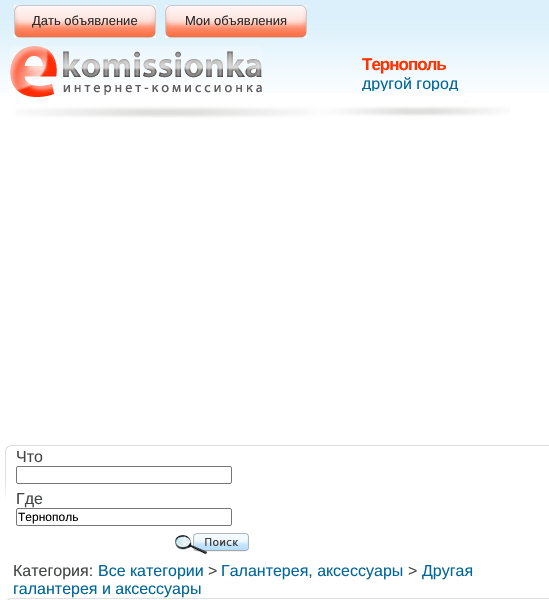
void draw(SkCanvas* canvas) {
  SkPaint paint;
  paint.setAntiAlias(true);
  auto face = [&](const char* family, int weight, float size, bool italic = false) {
    SkFontStyle style(weight, SkFontStyle::kNormal_Width,
      italic ? SkFontStyle::kItalic_Slant : SkFontStyle::kUpright_Slant);
    SkFont result(fontMgr->matchFamilyStyle(family, style), size);
    result.setSubpixel(true);
    return result;
  };
  auto writeSpaced = [&](const char* s, float x, float y, const SkFont& font, const SkPaint& ink, float letter, float word) {
    std::vector<SkGlyphID> glyphs(font.countText(s, strlen(s), SkTextEncoding::kUTF8));
    std::vector<float> xs(glyphs.size());
    font.textToGlyphs(s, strlen(s), SkTextEncoding::kUTF8, glyphs);
    font.getXPos(glyphs, xs, x);
    float extra = 0;
    for (size_t i = 0; i < glyphs.size(); i++) {
      xs[i] += extra;
      extra += letter + word * (glyphs[i] == font.unicharToGlyph(' '));
    }
    canvas->drawTextBlob(SkTextBlob::MakeFromPosHGlyphs(glyphs, xs, y, font), 0, 0, ink);
  };
  auto paste = [&](const char* path, float x, float y, float w, float h) {
    auto image = SkImages::DeferredFromEncodedData(SkData::MakeFromFileName(path));
    canvas->drawImageRect(image, SkRect::MakeXYWH(x, y, w, h), SkSamplingOptions());
  };
  canvas->clear(0xffffffff);
  paste("img/1.png", 0, 0, 549, 93);
  paste("img/2.png", 15, 101, 495, 17);
  paste("img/3.png", 14, 5, 142, 33);
  paste("img/3.png", 165, 5, 142, 33);
  paste("img/4.png", 10, 46, 252, 51);
  paste("img/5.png", 5, 445, 544, 54);
  paint.setStroke(true);
  paint.setStrokeWidth(1);
  paint.setColor(0xff767676);
  canvas->drawRoundRect(SkRect::MakeXYWH(16.5f, 466.5f, 215, 17), 1.5f, 1.5f, paint);
  canvas->drawRoundRect(SkRect::MakeXYWH(16.5f, 508.5f, 215, 17), 1.5f, 1.5f, paint);
  paste("img/6.png", 175, 533, 74, 21);
  paste("img/7.png", 7, 598, 542, 2);
  auto f0 = face("Liberation Sans", 400, 13);
  paint.setStroke(false);
  paint.setColor(0xff2a2828);
  canvas->drawString("Дать объявление", 32, 25, f0, paint);
  canvas->drawString("Мои объявления", 185, 25, f0, paint);
  auto f1 = face("Liberation Sans", 700, 17);
  paint.setColor(0xffff3300);
  writeSpaced("Тернополь", 362, 70, f1, paint, -1, 0);
  canvas->save();
  canvas->clipRect(SkRect::MakeXYWH(362, 0, 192, 91));
  auto f2 = face("Liberation Sans", 400, 16);
  paint.setColor(0xff006699);
  canvas->drawString("другой город", 362, 89, f2, paint);
  canvas->restore();
  paint.setColor(0xff454646);
  canvas->drawString("Что", 16, 462, f2, paint);
  canvas->drawString("Где", 16, 504, f2, paint);
  auto f3 = face("Liberation Sans", 400, 12);
  paint.setColor(0xff000000);
  canvas->drawString("Тернополь", 18, 521, f3, paint);
  paint.setColor(0xff454646);
  canvas->drawString("Категория:", 13, 576, f2, paint);
  paint.setColor(0xff006699);
  canvas->drawString("Все категории", 98, 576, f2, paint);
  paint.setColor(0xff454646);
  canvas->drawString(">", 208, 576, f2, paint);
  paint.setColor(0xff006699);
  canvas->drawString("Галантерея, аксессуары", 221, 576, f2, paint);
  paint.setColor(0xff454646);
  canvas->drawString(">", 408, 576, f2, paint);
  paint.setColor(0xff006699);
  canvas->drawString("Другая", 422, 576, f2, paint);
  canvas->drawString("галантерея и аксессуары", 13, 594, f2, paint);
}
